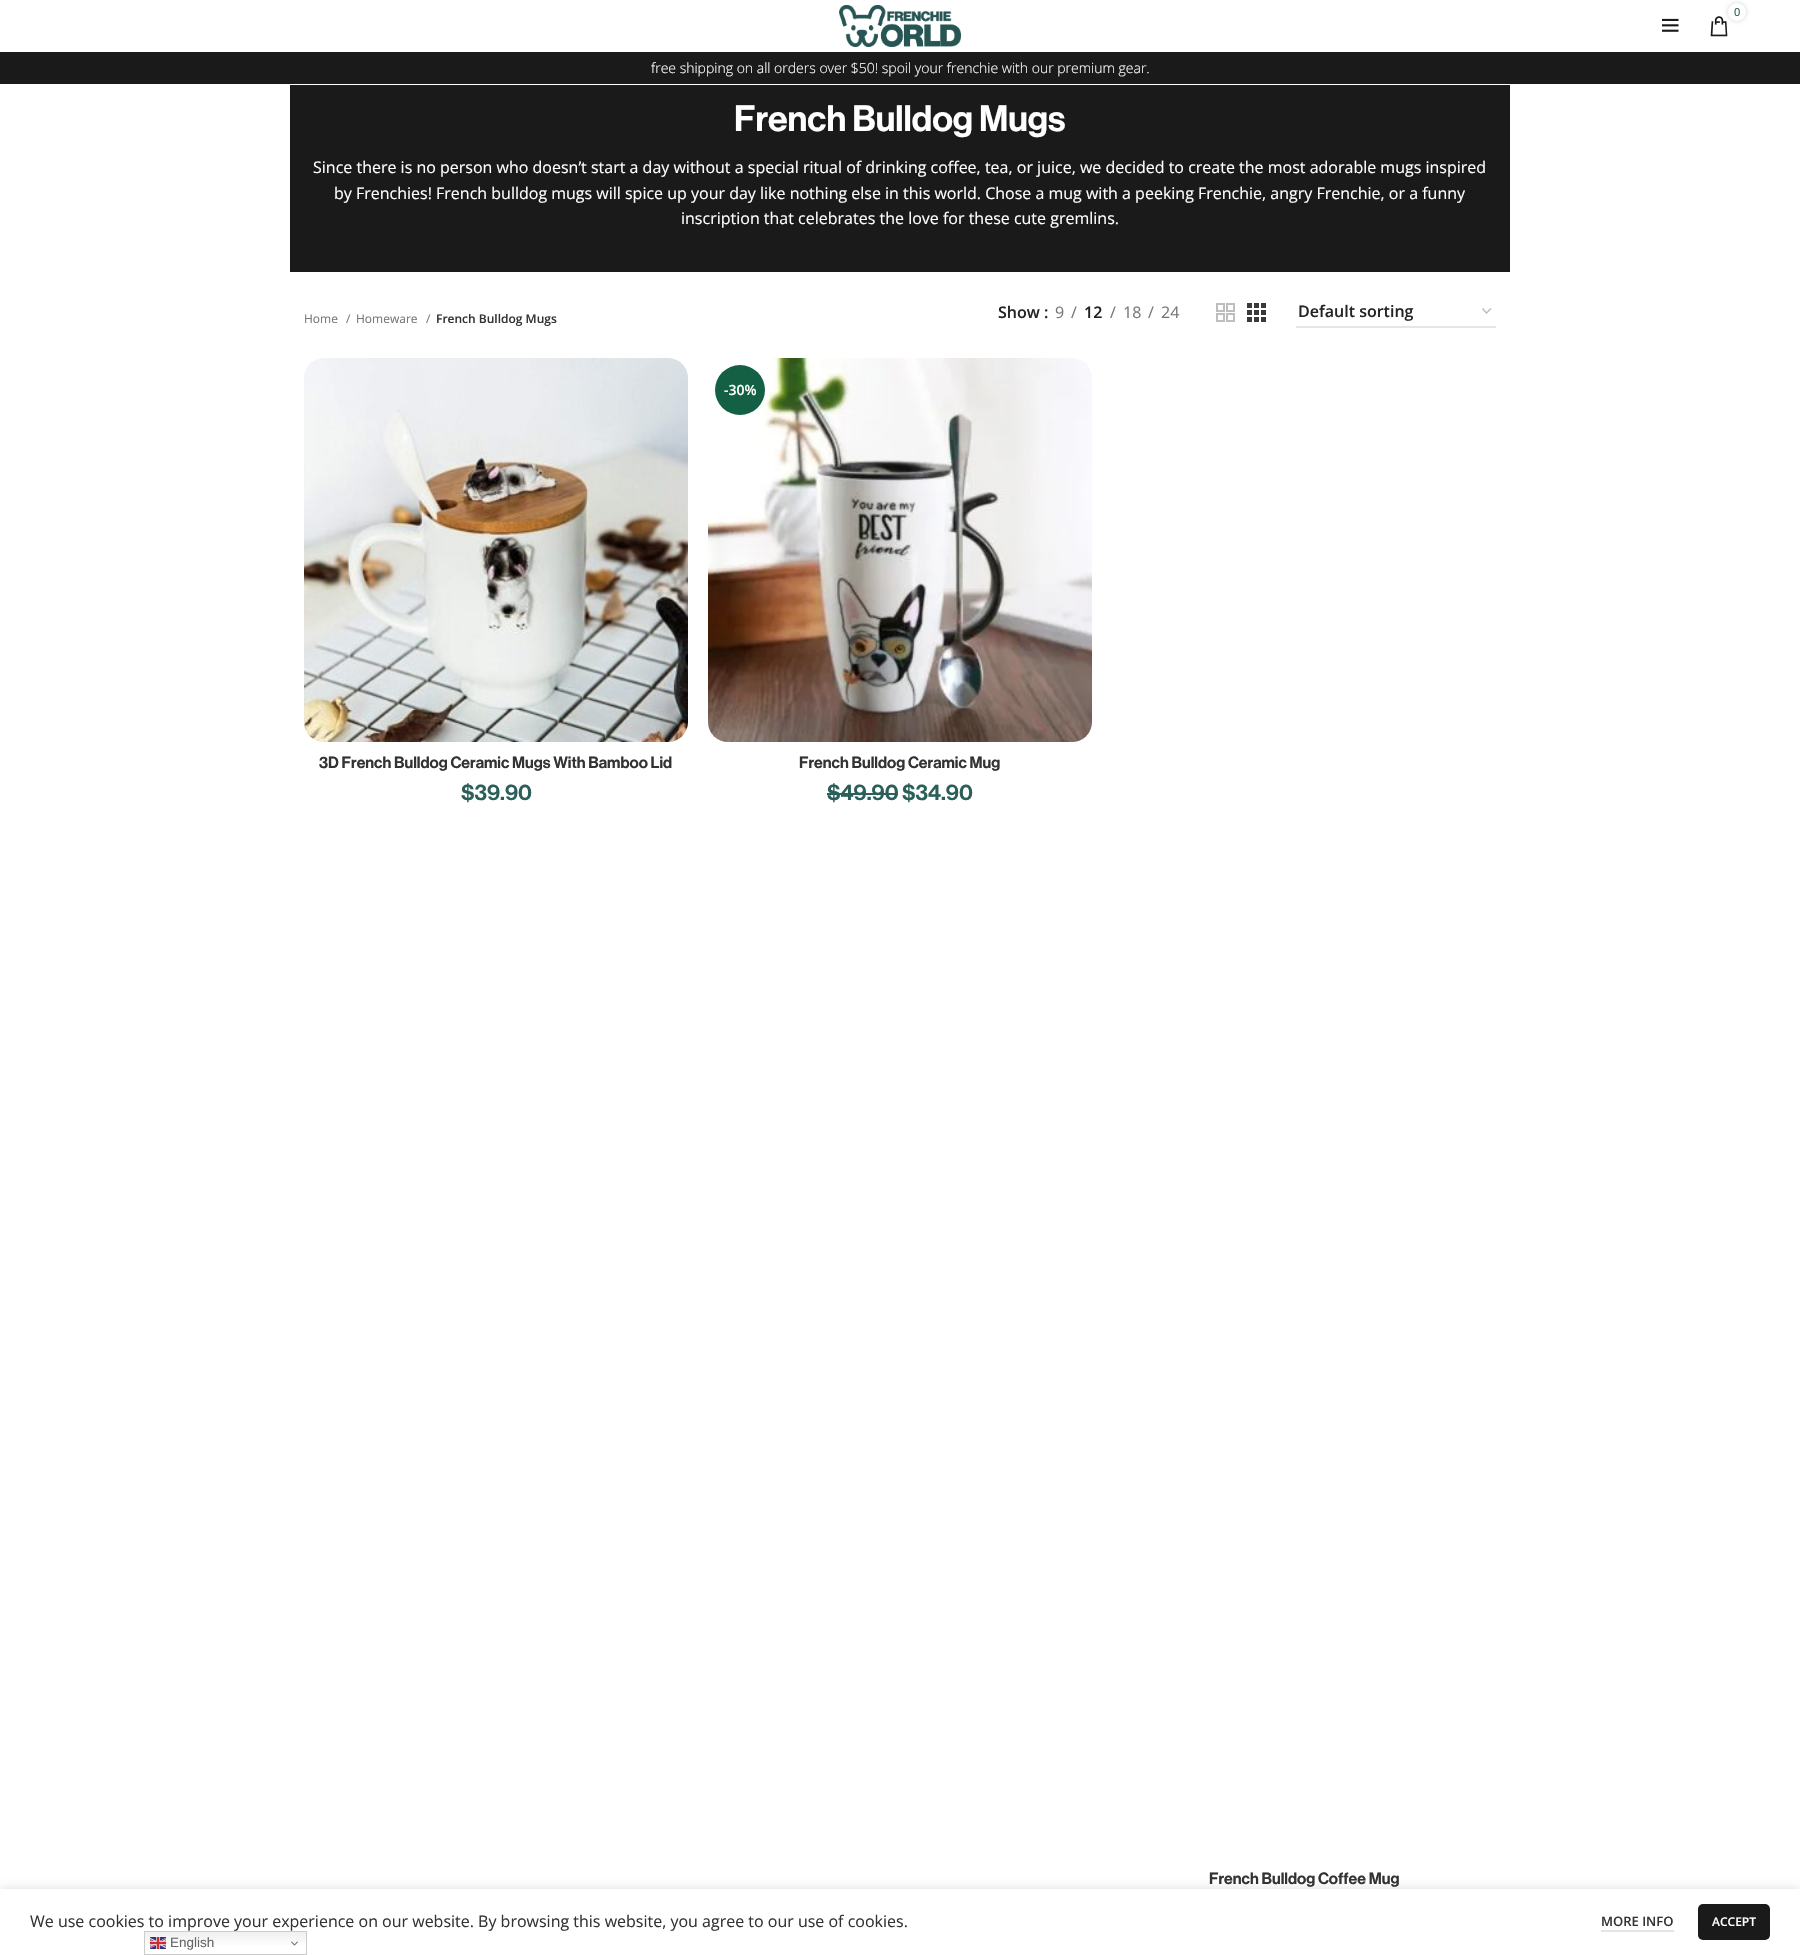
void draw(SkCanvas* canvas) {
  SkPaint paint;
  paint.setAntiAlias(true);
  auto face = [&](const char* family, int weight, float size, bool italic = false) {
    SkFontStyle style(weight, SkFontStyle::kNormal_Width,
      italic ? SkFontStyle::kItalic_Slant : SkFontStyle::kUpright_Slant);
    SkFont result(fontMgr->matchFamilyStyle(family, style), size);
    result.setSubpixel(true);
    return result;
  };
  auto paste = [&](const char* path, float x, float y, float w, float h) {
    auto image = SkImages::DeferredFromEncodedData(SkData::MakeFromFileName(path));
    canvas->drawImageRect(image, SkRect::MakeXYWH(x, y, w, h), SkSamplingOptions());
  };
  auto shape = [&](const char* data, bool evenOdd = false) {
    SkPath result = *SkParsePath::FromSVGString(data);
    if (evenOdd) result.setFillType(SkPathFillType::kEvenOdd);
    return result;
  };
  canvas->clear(0xffffffff);
  paste("img/1.png", 839, 5, 122, 42);
  paste("img/2.png", 1710, 16, 18, 21);
  paint.setColor(0x2b000000);
  paint.setMaskFilter(SkMaskFilter::MakeBlur(kNormal_SkBlurStyle, 2));
  canvas->drawRoundRect(SkRect::MakeXYWH(1728, 3, 18, 18), 9, 9, paint);
  paint.setMaskFilter(nullptr);
  paint.setColor(0xffffffff);
  canvas->drawCircle(1737, 12, 9, paint);
  paste("img/3.png", 1662, 18, 17, 14);
  paint.setColor(0xff1a1a1a);
  canvas->drawRect(SkRect::MakeXYWH(0, 52, 1800, 32), paint);
  canvas->drawRect(SkRect::MakeXYWH(290, 85, 1220, 187), paint);
  paste("img/4.png", 1216, 303, 19, 19);
  paste("img/5.png", 1247, 303, 19, 19);
  paint.setStroke(true);
  paint.setStrokeWidth(1.4f);
  paint.setColor(0xffbbbbbb);
  canvas->drawPath(shape("M1482.5 308.5L1486.5 313L1491 308.5"), paint);
  paint.setStroke(false);
  paint.setColor(0xffe6e6e6);
  canvas->drawRect(SkRect::MakeXYWH(1296, 326, 200, 2), paint);
  paste("img/6.png", 304, 358, 384, 384);
  paste("img/7.png", 708, 358, 384, 384);
  paint.setColor(0xff136044);
  canvas->drawCircle(740, 390, 25, paint);
  paint.setColor(0xff2b5f59);
  canvas->drawRect(SkRect::MakeXYWH(827, 793, 71, 2), paint);
  paint.setColor(0x24000000);
  paint.setMaskFilter(SkMaskFilter::MakeBlur(kNormal_SkBlurStyle, 4.5f));
  canvas->drawRect(SkRect::MakeXYWH(0, 1889, 1800, 66), paint);
  paint.setMaskFilter(nullptr);
  paint.setColor(0xffffffff);
  canvas->drawRect(SkRect::MakeXYWH(0, 1889, 1800, 66), paint);
  paint.setColor(0xffe4e4e4);
  canvas->drawRect(SkRect::MakeXYWH(1601, 1930, 73, 2), paint);
  paint.setColor(0xff1a1a1a);
  canvas->drawRoundRect(SkRect::MakeXYWH(1698, 1904, 72, 36), 5, 5, paint);
  {
    const SkColor colors[] = {0xffefefef, 0xffffffff};
    const float stops[] = {0, 0.7f};
    const SkPoint ends[] = {{226, 1931}, {226, 1955}};
    paint.setShader(SkGradientShader::MakeLinear(ends, colors, stops, 2, SkTileMode::kClamp));
    paint.setAlpha(255);
  }
  canvas->drawRect(SkRect::MakeXYWH(145, 1932, 161, 13), paint);
  paint.setStroke(true);
  paint.setStrokeWidth(1);
  paint.setShader(nullptr);
  paint.setColor(0xffcccccc);
  canvas->drawRect(SkRect::MakeXYWH(144.5f, 1931.5f, 162, 23), paint);
  paste("img/8.png", 150, 1937, 16, 12);
  paste("img/9.png", 291, 1941, 7, 5);
  auto f0 = face("Open Sans", 400, 11);
  paint.setStroke(false);
  paint.setColor(0xff136044);
  canvas->drawString("0", 1734, 16, f0, paint);
  auto f1 = face("Open Sans", 300, 14);
  paint.setColor(0xffffffff);
  canvas->drawString("free shipping on all orders over $50! spoil your frenchie with our premium gear.", 651, 73, f1, paint);
  auto f2 = face("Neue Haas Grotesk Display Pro", 600, 36);
  canvas->drawString("French Bulldog Mugs", 734, 131, f2, paint);
  auto f3 = face("Open Sans", 400, 16);
  {
    const struct { const char* s; float x, y; } items[] = {
      {"Since there is no person who doesn’t start a day without a special ritual of drinking coffee, tea, or juice, we decided to create the most adorable mugs inspired", 313, 173},
      {"by Frenchies! French bulldog mugs will spice up your day like nothing else in this world. Chose a mug with a peeking Frenchie, angry Frenchie, or a funny", 334, 199},
      {"inscription that celebrates the love for these cute gremlins.", 681, 224},
    };
    for (auto [s, x, y] : items) {
      canvas->drawString(s, x, y, f3, paint);
    }
  }
  auto f4 = face("Open Sans", 400, 12);
  paint.setColor(0xff777777);
  {
    const struct { const char* s; float x, y; } items[] = {
      {"Home", 304, 323},
      {"/", 346, 323},
      {"Homeware", 356, 323},
      {"/", 426, 323},
    };
    for (auto [s, x, y] : items) {
      canvas->drawString(s, x, y, f4, paint);
    }
  }
  auto f5 = face("Open Sans", 600, 12);
  paint.setColor(0xff333333);
  canvas->drawString("French Bulldog Mugs", 436, 323, f5, paint);
  auto f6 = face("Open Sans", 600, 16);
  paint.setColor(0xff242424);
  canvas->drawString("Show :", 998, 318, f6, paint);
  paint.setColor(0xff777777);
  canvas->drawString("9", 1055, 318, f3, paint);
  canvas->drawString("/", 1071, 318, f3, paint);
  paint.setColor(0xff242424);
  canvas->drawString("12", 1084, 318, f6, paint);
  paint.setColor(0xff777777);
  {
    const struct { const char* s; float x, y; } items[] = {
      {"/", 1110, 318},
      {"18", 1123, 318},
      {"/", 1148, 318},
      {"24", 1161, 318},
    };
    for (auto [s, x, y] : items) {
      canvas->drawString(s, x, y, f3, paint);
    }
  }
  paint.setColor(0xff242424);
  canvas->drawString("Default sorting", 1298, 317, f6, paint);
  auto f7 = face("Neue Haas Grotesk Display Pro", 600, 16);
  paint.setColor(0xff333333);
  canvas->drawString("3D French Bulldog Ceramic Mugs With Bamboo Lid", 319, 768, f7, paint);
  auto f8 = face("Neue Haas Grotesk Display Pro", 600, 22);
  paint.setColor(0xff2b5f59);
  canvas->drawString("$39.90", 461, 800, f8, paint);
  auto f9 = face("Open Sans", 600, 14);
  paint.setColor(0xffffffff);
  canvas->drawString("-30%", 724, 395, f9, paint);
  paint.setColor(0xff333333);
  canvas->drawString("French Bulldog Ceramic Mug", 799, 768, f7, paint);
  paint.setColor(0xff2b5f59);
  canvas->drawString("$49.90", 827, 800, f8, paint);
  canvas->drawString("$34.90", 902, 800, f8, paint);
  paint.setColor(0xff333333);
  canvas->drawString("French Bulldog Coffee Mug", 1209, 1884, f7, paint);
  canvas->drawString("We use cookies to improve your experience on our website. By browsing this website, you agree to our use of cookies.", 30, 1927, f3, paint);
  auto f10 = face("Open Sans", 600, 13);
  canvas->drawString("MORE INFO", 1601, 1926, f10, paint);
  paint.setColor(0xffffffff);
  canvas->drawString("ACCEPT", 1712, 1926, f5, paint);
  auto f11 = face("Liberation Sans", 400, 13.5f);
  paint.setColor(0xff666666);
  canvas->drawString("English", 170, 1947, f11, paint);
}
